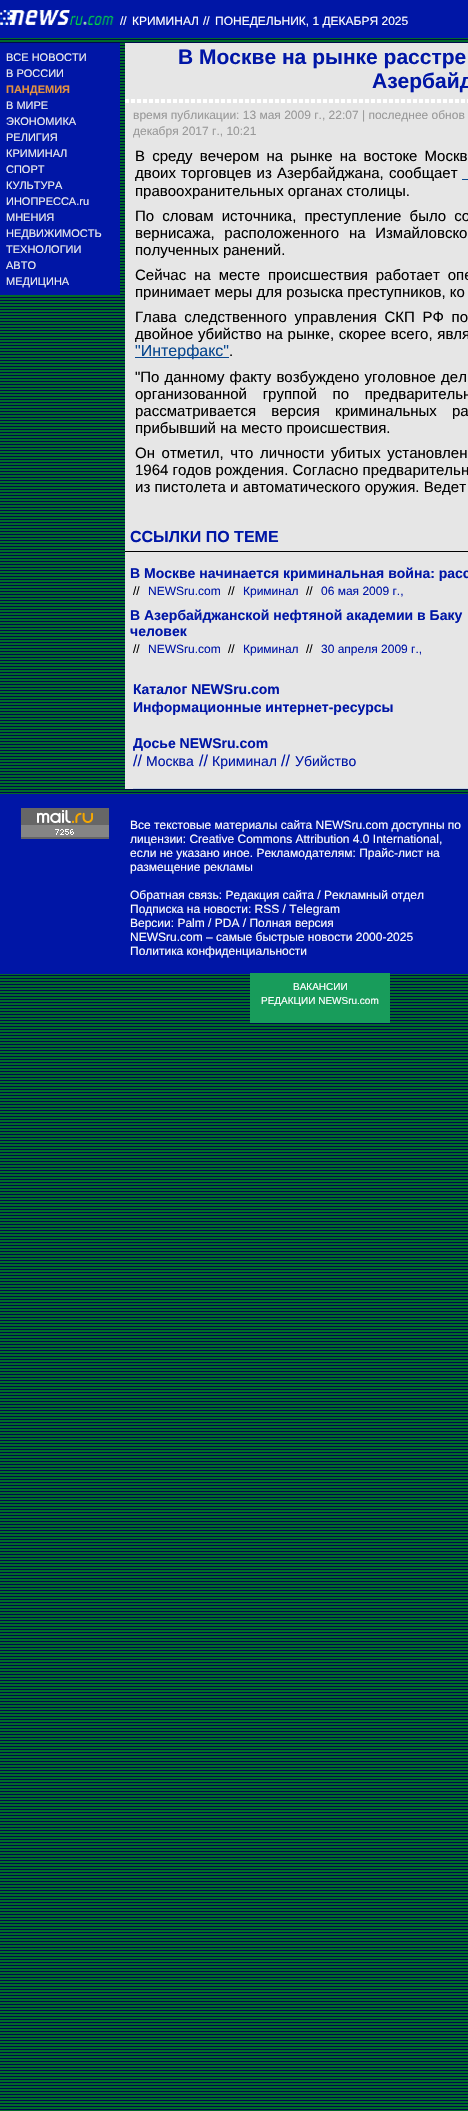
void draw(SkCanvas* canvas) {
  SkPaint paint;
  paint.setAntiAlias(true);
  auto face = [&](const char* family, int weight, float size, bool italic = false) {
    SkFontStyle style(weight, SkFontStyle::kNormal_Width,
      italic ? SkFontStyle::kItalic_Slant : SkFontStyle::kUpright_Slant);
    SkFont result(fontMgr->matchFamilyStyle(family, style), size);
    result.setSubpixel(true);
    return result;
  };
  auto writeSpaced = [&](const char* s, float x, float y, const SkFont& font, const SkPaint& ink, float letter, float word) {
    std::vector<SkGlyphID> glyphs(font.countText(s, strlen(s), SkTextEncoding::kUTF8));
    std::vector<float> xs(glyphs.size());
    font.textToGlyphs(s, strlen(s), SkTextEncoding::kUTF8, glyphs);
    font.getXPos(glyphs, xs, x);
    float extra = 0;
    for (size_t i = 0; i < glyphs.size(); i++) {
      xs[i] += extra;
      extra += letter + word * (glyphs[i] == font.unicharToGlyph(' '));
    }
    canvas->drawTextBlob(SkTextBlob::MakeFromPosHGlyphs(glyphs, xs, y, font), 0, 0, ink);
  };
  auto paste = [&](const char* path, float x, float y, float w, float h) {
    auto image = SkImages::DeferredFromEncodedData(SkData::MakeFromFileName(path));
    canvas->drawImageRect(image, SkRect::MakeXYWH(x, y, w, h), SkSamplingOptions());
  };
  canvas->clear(0xff006a29);
  paste("img/1.png", 0, 38, 468, 2072);
  paint.setColor(0xff0016a6);
  canvas->drawRect(SkRect::MakeXYWH(0, 0, 468, 38), paint);
  paste("img/2.png", 0, 10, 114, 15);
  canvas->drawRect(SkRect::MakeXYWH(0, 43, 120, 252), paint);
  paint.setColor(0xffe6e6e6);
  canvas->drawRect(SkRect::MakeXYWH(125, 43, 343, 746), paint);
  paste("img/3.png", 125, 99, 343, 4);
  {
    const struct { float x, y, w, h; SkColor color; } items[] = {
      {462, 179, 6, 1, 0xff09488f},
      {135, 357, 94, 1, 0xff09488f},
      {125, 551, 343, 1, 0xff000000},
      {133, 788, 335, 1, 0xffc3d2e4},
      {0, 794, 468, 180, 0xff0016a6},
    };
    for (auto [x, y, w, h, color] : items) {
      paint.setColor(color);
      canvas->drawRect(SkRect::MakeXYWH(x, y, w, h), paint);
    }
  }
  paste("img/4.png", 21, 808, 88, 31);
  paint.setColor(0xff189c5b);
  canvas->drawRect(SkRect::MakeXYWH(250, 973, 140, 50), paint);
  auto f0 = face("Liberation Sans", 400, 12);
  paint.setColor(0xffffffff);
  {
    const struct { const char* s; float x, y; } items[] = {
      {"//", 120, 25},
      {"КРИМИНАЛ", 132, 25},
      {"//", 203, 25},
      {"ПОНЕДЕЛЬНИК, 1 ДЕКАБРЯ 2025", 215, 25},
    };
    for (auto [s, x, y] : items) {
      canvas->drawString(s, x, y, f0, paint);
    }
  }
  auto f1 = face("Liberation Sans", 400, 11);
  paint.setColor(0xffefefef);
  canvas->drawString("ВСЕ НОВОСТИ", 6, 61, f1, paint);
  canvas->drawString("В РОССИИ", 6, 77, f1, paint);
  auto f2 = face("Liberation Sans", 700, 11);
  paint.setColor(0xffe3913f);
  canvas->drawString("ПАНДЕМИЯ", 6, 93, f2, paint);
  paint.setColor(0xffefefef);
  {
    const struct { const char* s; float x, y; } items[] = {
      {"В МИРЕ", 6, 109},
      {"ЭКОНОМИКА", 6, 125},
      {"РЕЛИГИЯ", 6, 141},
      {"КРИМИНАЛ", 6, 157},
      {"СПОРТ", 6, 173},
      {"КУЛЬТУРА", 6, 189},
      {"ИНОПРЕССА.ru", 6, 205},
      {"МНЕНИЯ", 6, 221},
      {"НЕДВИЖИМОСТЬ", 6, 237},
      {"ТЕХНОЛОГИИ", 6, 253},
      {"АВТО", 6, 269},
      {"МЕДИЦИНА", 6, 285},
    };
    for (auto [s, x, y] : items) {
      canvas->drawString(s, x, y, f1, paint);
    }
  }
  auto f3 = face("Liberation Sans", 700, 21);
  paint.setColor(0xff0016a6);
  canvas->drawString("В Москве на рынке расстре", 178, 64, f3, paint);
  canvas->drawString("Азербайд", 372, 88, f3, paint);
  paint.setColor(0xff999999);
  canvas->drawString("время публикации: 13 мая 2009 г., 22:07 | последнее обнов", 133, 119, f0, paint);
  canvas->drawString("декабря 2017 г., 10:21", 133, 135, f0, paint);
  auto f4 = face("Liberation Sans", 400, 15);
  paint.setColor(0xff000000);
  writeSpaced("В среду вечером на рынке на востоке Москв", 135, 161, f4, paint, 0, 3);
  writeSpaced("двоих торговцев из Азербайджана, сообщает", 135, 178, f4, paint, 0, 1);
  canvas->drawString("правоохранительных органах столицы.", 135, 196, f4, paint);
  writeSpaced("По словам источника, преступление было со", 135, 221, f4, paint, 0, 4);
  writeSpaced("вернисажа, расположенного на Измайловско", 135, 238, f4, paint, 0, 5.5f);
  canvas->drawString("полученных ранений.", 135, 255, f4, paint);
  writeSpaced("Сейчас на месте происшествия работает опе", 135, 280, f4, paint, 0, 3.75f);
  canvas->drawString("принимает меры для розыска преступников, ко", 135, 297, f4, paint);
  writeSpaced("Глава следственного управления СКП РФ по", 135, 322, f4, paint, 0, 3.5f);
  writeSpaced("двойное убийство на рынке, скорее всего, явля", 135, 339, f4, paint, 0, 0.5f);
  auto f5 = face("Liberation Sans", 400, 16);
  paint.setColor(0xff09488f);
  canvas->drawString("\"Интерфакс\"", 135, 356, f5, paint);
  paint.setColor(0xff000000);
  canvas->drawString(".", 229, 356, f4, paint);
  writeSpaced("\"По данному факту возбуждено уголовное дел", 135, 382, f4, paint, 0, 1);
  writeSpaced("организованной группой по предварительн", 135, 399, f4, paint, 0, 11.5f);
  writeSpaced("рассматривается версия криминальных ра", 135, 416, f4, paint, 0, 11);
  canvas->drawString("прибывший на место происшествия.", 135, 433, f4, paint);
  writeSpaced("Он отметил, что личности убитых установлен", 135, 458, f4, paint, 0, 2.5f);
  canvas->drawString("1964 годов рождения. Согласно предварительн", 135, 475, f4, paint);
  canvas->drawString("из пистолета и автоматического оружия. Ведет", 135, 492, f4, paint);
  auto f6 = face("Liberation Sans", 700, 16);
  paint.setColor(0xff0016a6);
  canvas->drawString("ССЫЛКИ ПО ТЕМЕ", 130, 542, f6, paint);
  auto f7 = face("Liberation Sans", 700, 14);
  canvas->drawString("В Москве начинается криминальная война: расс", 130, 578, f7, paint);
  paint.setColor(0xff000000);
  canvas->drawString("//", 133, 595, f0, paint);
  paint.setColor(0xff0016a6);
  canvas->drawString("NEWSru.com", 148, 595, f0, paint);
  paint.setColor(0xff000000);
  canvas->drawString("//", 228, 595, f0, paint);
  paint.setColor(0xff0016a6);
  canvas->drawString("Криминал", 243, 595, f0, paint);
  paint.setColor(0xff000000);
  canvas->drawString("//", 306, 595, f0, paint);
  paint.setColor(0xff0016a6);
  canvas->drawString("06 мая 2009 г.,", 321, 595, f0, paint);
  canvas->drawString("В Азербайджанской нефтяной академии в Баку", 130, 620, f7, paint);
  canvas->drawString("человек", 130, 636, f7, paint);
  paint.setColor(0xff000000);
  canvas->drawString("//", 133, 653, f0, paint);
  paint.setColor(0xff0016a6);
  canvas->drawString("NEWSru.com", 148, 653, f0, paint);
  paint.setColor(0xff000000);
  canvas->drawString("//", 228, 653, f0, paint);
  paint.setColor(0xff0016a6);
  canvas->drawString("Криминал", 243, 653, f0, paint);
  paint.setColor(0xff000000);
  canvas->drawString("//", 306, 653, f0, paint);
  paint.setColor(0xff0016a6);
  canvas->drawString("30 апреля 2009 г.,", 321, 653, f0, paint);
  {
    const struct { const char* s; float x, y; } items[] = {
      {"Каталог NEWSru.com", 133, 694},
      {"Информационные интернет-ресурсы", 133, 712},
      {"Досье NEWSru.com", 133, 748},
    };
    for (auto [s, x, y] : items) {
      canvas->drawString(s, x, y, f7, paint);
    }
  }
  canvas->drawString("//", 133, 766, f5, paint);
  auto f8 = face("Liberation Sans", 400, 14);
  canvas->drawString("Москва", 146, 766, f8, paint);
  canvas->drawString("//", 199, 766, f5, paint);
  canvas->drawString("Криминал", 212, 766, f8, paint);
  canvas->drawString("//", 281, 766, f5, paint);
  canvas->drawString("Убийство", 295, 766, f8, paint);
  paint.setColor(0xffffffff);
  {
    const struct { const char* s; float x, y; } items[] = {
      {"Все текстовые материалы сайта NEWSru.com доступны по", 130, 829},
      {"лицензии: Creative Commons Attribution 4.0 International,", 130, 843},
      {"если не указано иное. Рекламодателям: Прайс-лист на", 130, 857},
      {"размещение рекламы", 130, 871},
      {"Обратная связь: Редакция сайта / Рекламный отдел", 130, 899},
      {"Подписка на новости: RSS / Telegram", 130, 913},
      {"Версии: Palm / PDA / Полная версия", 130, 927},
      {"NEWSru.com – самые быстрые новости 2000-2025", 130, 941},
      {"Политика конфиденциальности", 130, 955},
    };
    for (auto [s, x, y] : items) {
      canvas->drawString(s, x, y, f0, paint);
    }
  }
  auto f9 = face("Liberation Sans", 400, 10);
  canvas->drawString("ВАКАНСИИ", 293, 990, f9, paint);
  canvas->drawString("РЕДАКЦИИ NEWSru.com", 261, 1004, f9, paint);
}
